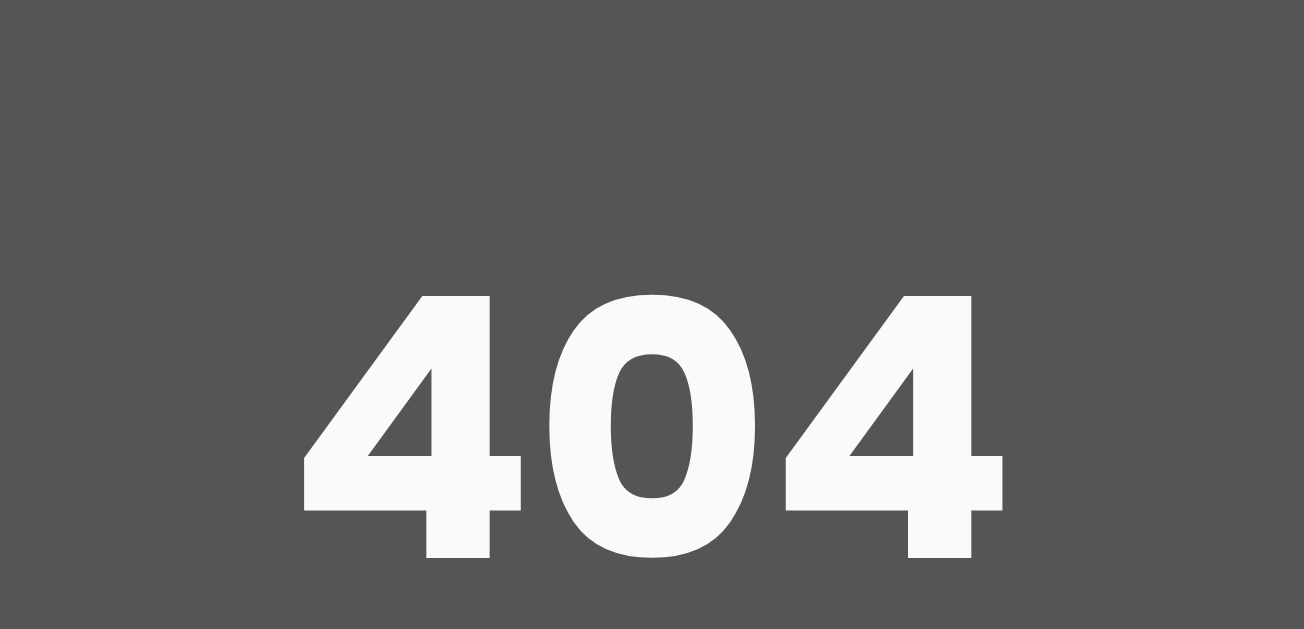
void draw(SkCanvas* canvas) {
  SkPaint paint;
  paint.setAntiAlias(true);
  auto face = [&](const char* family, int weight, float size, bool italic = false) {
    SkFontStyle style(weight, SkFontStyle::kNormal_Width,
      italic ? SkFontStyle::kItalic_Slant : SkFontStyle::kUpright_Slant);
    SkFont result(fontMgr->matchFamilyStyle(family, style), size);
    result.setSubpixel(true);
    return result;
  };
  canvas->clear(0xff555555);
  auto f0 = face("Poppins", 700, 366);
  paint.setColor(0xfffafafa);
  canvas->drawString("404", 288, 558, f0, paint);
}
